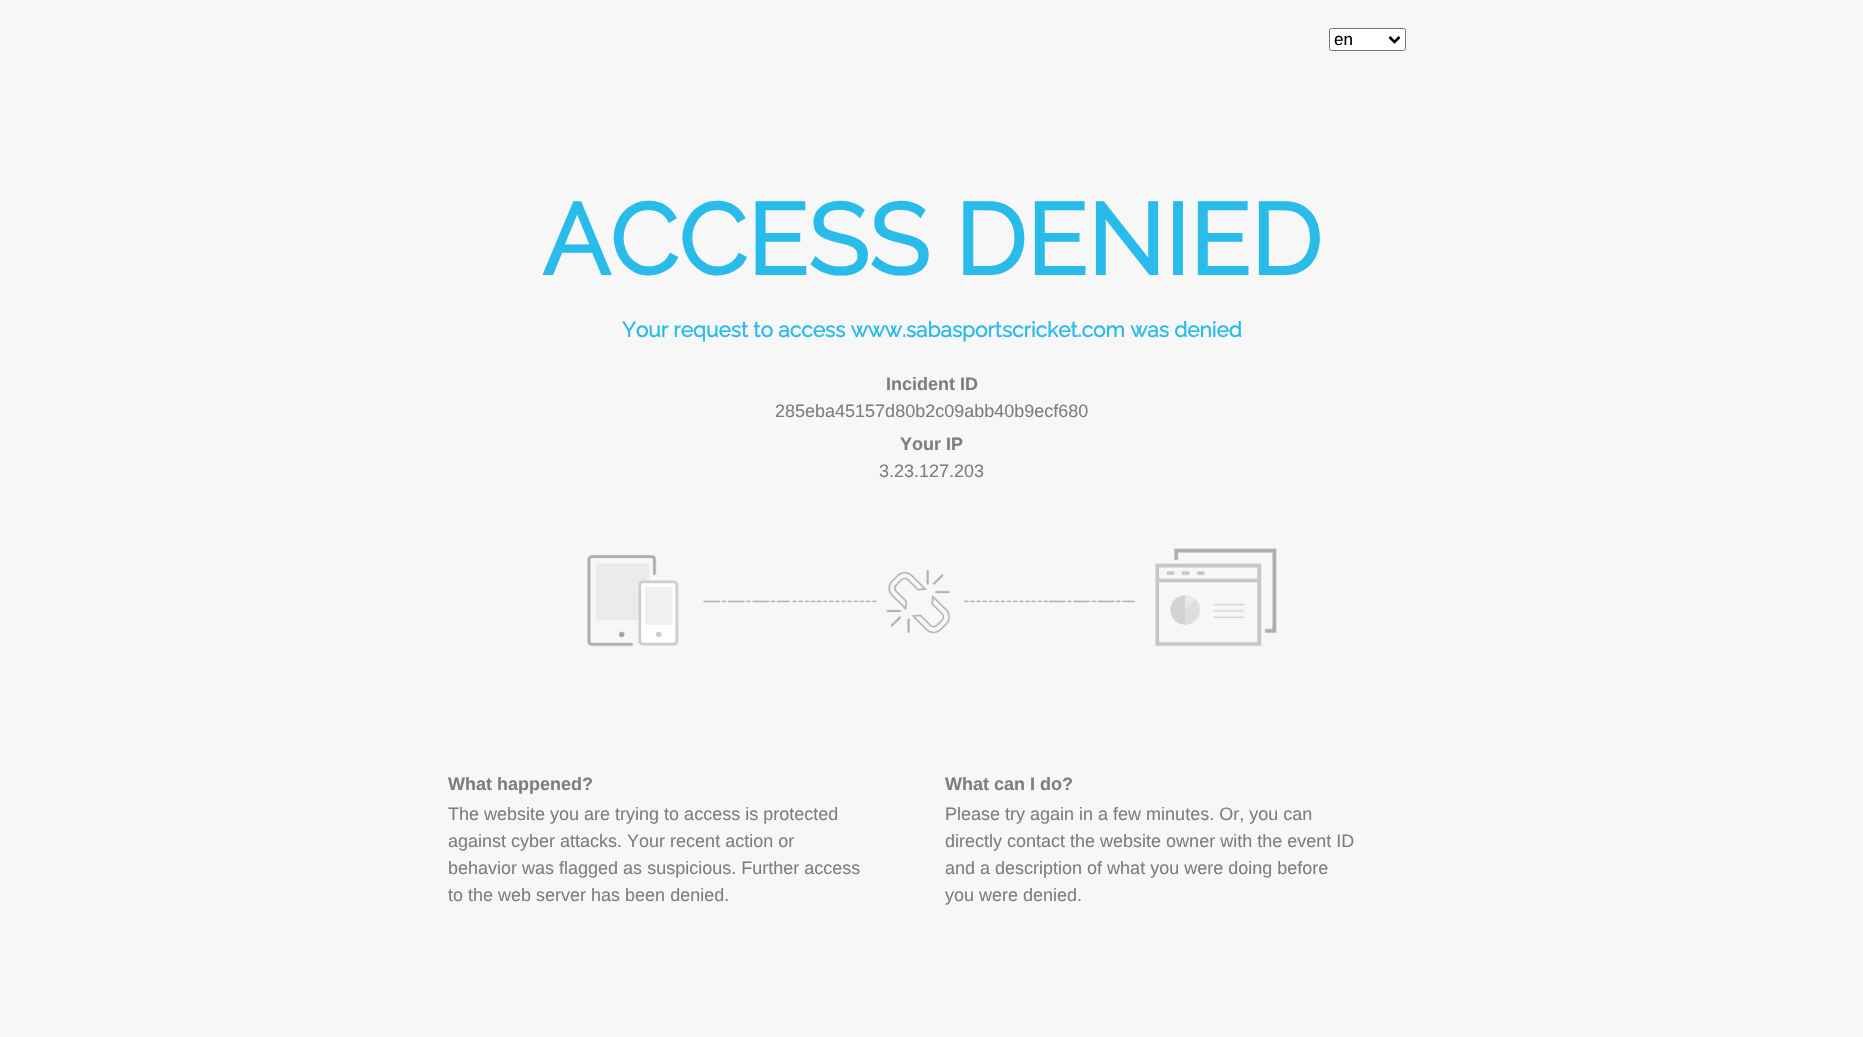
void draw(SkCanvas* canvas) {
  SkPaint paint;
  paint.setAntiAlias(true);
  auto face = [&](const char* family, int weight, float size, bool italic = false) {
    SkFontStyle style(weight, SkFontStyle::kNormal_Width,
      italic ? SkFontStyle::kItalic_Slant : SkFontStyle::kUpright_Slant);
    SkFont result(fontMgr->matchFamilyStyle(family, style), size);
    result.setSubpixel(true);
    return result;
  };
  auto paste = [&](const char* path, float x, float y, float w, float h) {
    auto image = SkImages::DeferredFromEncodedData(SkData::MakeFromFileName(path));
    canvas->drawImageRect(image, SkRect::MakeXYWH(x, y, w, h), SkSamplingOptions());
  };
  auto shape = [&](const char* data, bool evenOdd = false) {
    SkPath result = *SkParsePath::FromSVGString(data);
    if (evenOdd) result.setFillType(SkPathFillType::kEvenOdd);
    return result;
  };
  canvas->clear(0xfff7f7f7);
  paint.setColor(0xffffffff);
  canvas->drawRoundRect(SkRect::MakeXYWH(1329.5f, 28.5f, 76, 22), 2, 2, paint);
  paint.setStroke(true);
  paint.setStrokeWidth(1);
  paint.setColor(0xff767676);
  canvas->drawRoundRect(SkRect::MakeXYWH(1329.5f, 28.5f, 76, 22), 2, 2, paint);
  paint.setStrokeWidth(2.5f);
  paint.setColor(0xff000000);
  canvas->drawPath(shape("M1389.5 37L1394.5 42L1399.5 37"), paint);
  paste("img/1.png", 587, 548, 690, 99);
  auto f0 = face("Liberation Sans", 400, 17);
  paint.setStroke(false);
  canvas->drawString("en", 1334, 45, f0, paint);
  auto f1 = face("Raleway", 700, 100);
  paint.setColor(0xff29bcea);
  canvas->drawString("ACCESS DENIED", 542, 275, f1, paint);
  auto f2 = face("Raleway", 700, 21);
  canvas->drawString("Your request to access www.sabasportscricket.com was denied", 622, 337, f2, paint);
  auto f3 = face("Liberation Sans", 700, 18);
  paint.setColor(0xff7f7e7f);
  canvas->drawString("Incident ID", 886, 390, f3, paint);
  auto f4 = face("Liberation Sans", 400, 18);
  canvas->drawString("285eba45157d80b2c09abb40b9ecf680", 775, 417, f4, paint);
  canvas->drawString("Your IP", 900, 450, f3, paint);
  canvas->drawString("3.23.127.203", 879, 477, f4, paint);
  canvas->drawString("What happened?", 448, 790, f3, paint);
  {
    const struct { const char* s; float x, y; } items[] = {
      {"The website you are trying to access is protected", 448, 820},
      {"against cyber attacks. Your recent action or", 448, 847},
      {"behavior was flagged as suspicious. Further access", 448, 874},
      {"to the web server has been denied.", 448, 901},
    };
    for (auto [s, x, y] : items) {
      canvas->drawString(s, x, y, f4, paint);
    }
  }
  canvas->drawString("What can I do?", 945, 790, f3, paint);
  {
    const struct { const char* s; float x, y; } items[] = {
      {"Please try again in a few minutes. Or, you can", 945, 820},
      {"directly contact the website owner with the event ID", 945, 847},
      {"and a description of what you were doing before", 945, 874},
      {"you were denied.", 945, 901},
    };
    for (auto [s, x, y] : items) {
      canvas->drawString(s, x, y, f4, paint);
    }
  }
}
